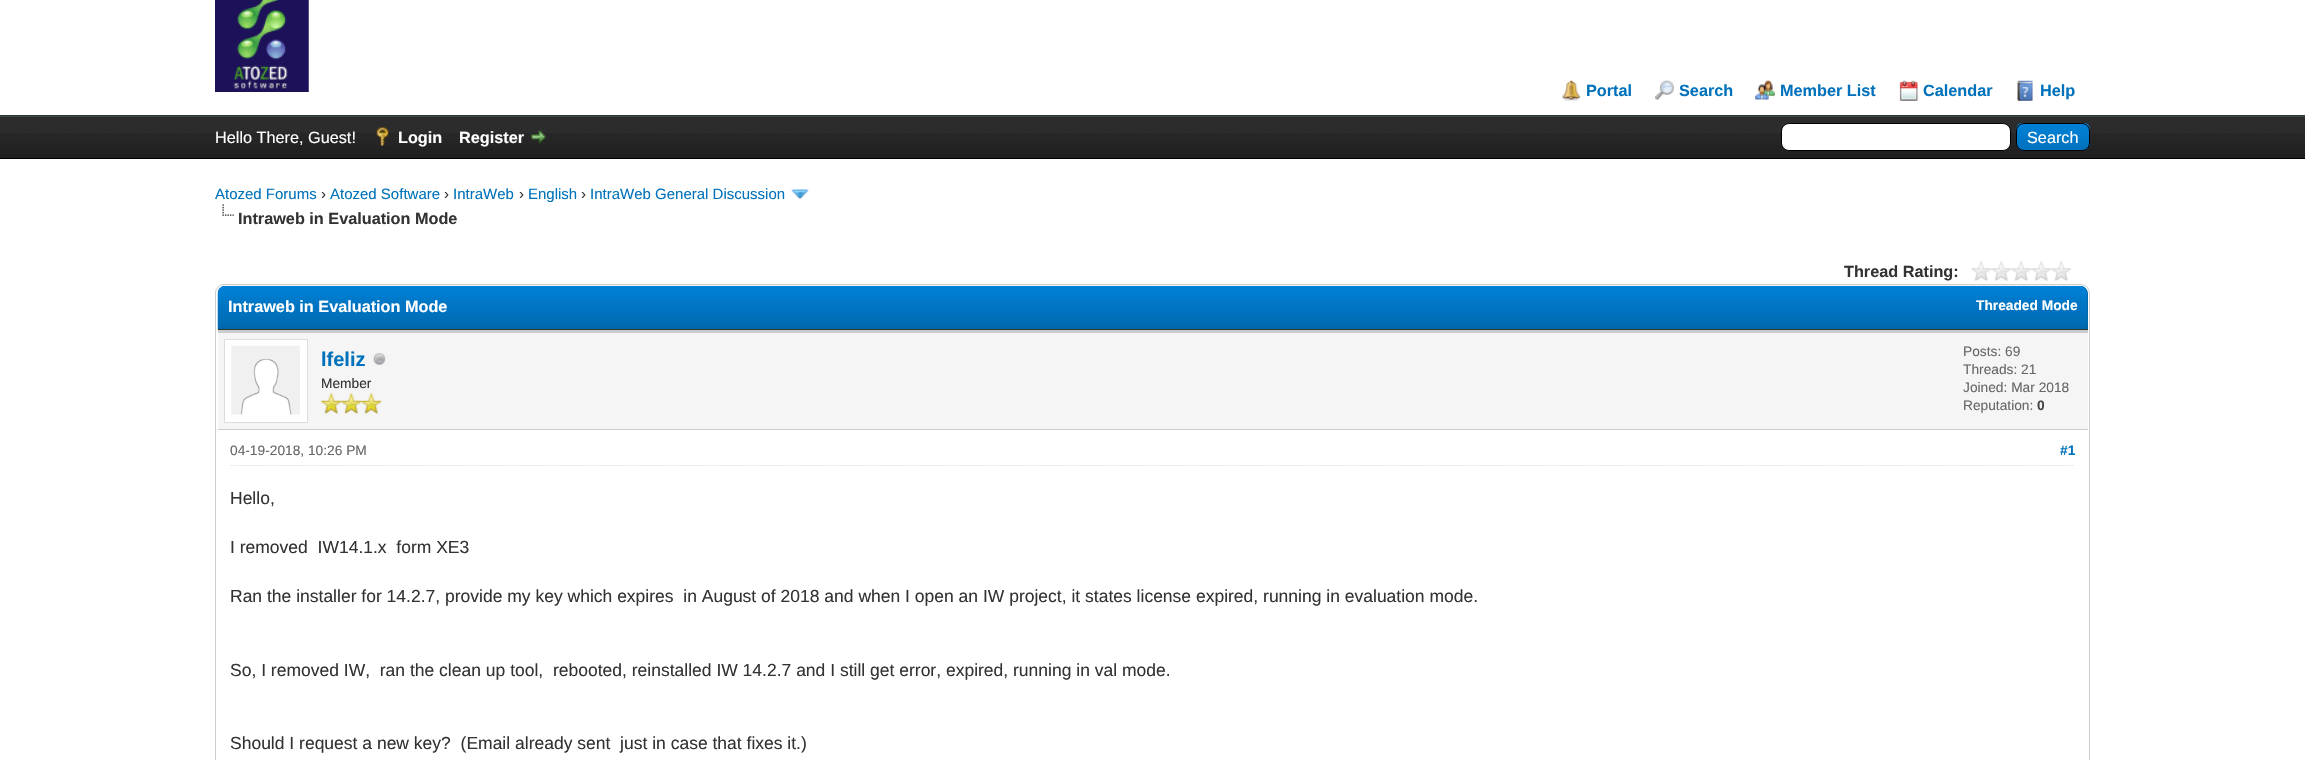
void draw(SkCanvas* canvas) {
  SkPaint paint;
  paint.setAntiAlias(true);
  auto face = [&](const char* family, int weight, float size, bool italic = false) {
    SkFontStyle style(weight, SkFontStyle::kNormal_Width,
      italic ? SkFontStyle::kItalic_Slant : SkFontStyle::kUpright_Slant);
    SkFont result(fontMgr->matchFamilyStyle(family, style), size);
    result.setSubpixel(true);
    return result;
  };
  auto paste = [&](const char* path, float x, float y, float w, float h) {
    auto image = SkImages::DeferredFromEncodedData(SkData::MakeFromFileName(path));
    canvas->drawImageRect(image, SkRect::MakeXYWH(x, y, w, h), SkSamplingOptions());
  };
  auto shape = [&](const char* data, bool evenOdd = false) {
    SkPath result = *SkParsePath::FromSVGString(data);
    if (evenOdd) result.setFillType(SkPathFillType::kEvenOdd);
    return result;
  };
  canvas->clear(0xffffffff);
  paint.setColor(0xff263c30);
  canvas->drawRect(SkRect::MakeXYWH(0, 115, 2305, 1), paint);
  paste("img/1.png", 215, 0, 94, 92);
  paste("img/2.png", 1562, 80, 19, 21);
  paste("img/3.png", 1654, 80, 20, 20);
  paste("img/4.png", 1755, 80, 20, 20);
  paste("img/5.png", 1899, 80, 19, 21);
  paste("img/6.png", 2017, 80, 16, 21);
  paste("img/7.png", 0, 117, 2305, 41);
  paint.setColor(0xff444444);
  canvas->drawRect(SkRect::MakeXYWH(0, 116, 2305, 1), paint);
  paint.setColor(0xff000000);
  canvas->drawRect(SkRect::MakeXYWH(0, 158, 2305, 1), paint);
  paste("img/8.png", 376, 127, 13, 19);
  paste("img/9.png", 531, 130, 16, 14);
  paint.setColor(0xffffffff);
  canvas->drawRoundRect(SkRect::MakeXYWH(1781.5f, 123.5f, 229, 27), 7.5f, 7.5f, paint);
  paint.setStroke(true);
  paint.setStrokeWidth(1);
  paint.setColor(0xff000000);
  canvas->drawRoundRect(SkRect::MakeXYWH(1781.5f, 123.5f, 229, 27), 7.5f, 7.5f, paint);
  paste("img/10.png", 2016, 123, 74, 28);
  canvas->drawRoundRect(SkRect::MakeXYWH(2016.5f, 123.5f, 73, 27), 7.5f, 7.5f, paint);
  paste("img/11.png", 791, 189, 18, 10);
  paste("img/12.png", 222, 204, 12, 12);
  paste("img/13.png", 1971, 261, 101, 20);
  paint.setColor(0xffcccccc);
  canvas->drawRoundRect(SkRect::MakeXYWH(215.5f, 284.5f, 1874, 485), 8.5f, 8.5f, paint);
  paint.setStroke(false);
  paint.setColor(0xff0066a2);
  canvas->drawPath(shape("M226 286H2080C2084.5 286 2088 289.5 2088 294V330H218V294C218 289.5 221.5 286 226 286Z"), paint);
  paste("img/14.png", 217, 285, 1871, 45);
  {
    const struct { float x, y, w, h; SkColor color; } items[] = {
      {218, 329, 1870, 1, 0xff263c30},
      {218, 333, 1870, 96, 0xfff5f5f5},
      {218, 330, 1870, 3, 0xffcccccc},
      {218, 429, 1870, 1, 0xffcccccc},
    };
    for (auto [x, y, w, h, color] : items) {
      paint.setColor(color);
      canvas->drawRect(SkRect::MakeXYWH(x, y, w, h), paint);
    }
  }
  paint.setColor(0xffffffff);
  canvas->drawRect(SkRect::MakeXYWH(224.5f, 339.5f, 83, 83), paint);
  paint.setStroke(true);
  paint.setColor(0xffdddddd);
  canvas->drawRect(SkRect::MakeXYWH(224.5f, 339.5f, 83, 83), paint);
  paste("img/15.png", 231, 345, 69, 70);
  paste("img/16.png", 373, 353, 13, 12);
  paste("img/17.png", 321, 393, 21, 21);
  paste("img/18.png", 341, 393, 21, 21);
  paste("img/18.png", 361, 393, 21, 21);
  paint.setStrokeWidth(1.2f);
  paint.setPathEffect(SkDashPathEffect::Make({{1.25f, 1.25f}}, 0));
  canvas->drawPath(shape("M230 465.5H2075"), paint);
  paint.setPathEffect(nullptr);
  auto f0 = face("Liberation Sans", 700, 16.25f);
  paint.setStroke(false);
  paint.setColor(0xff0072bc);
  {
    const struct { const char* s; float x, y; } items[] = {
      {"Portal", 1586, 96},
      {"Search", 1679, 96},
      {"Member List", 1780, 96},
      {"Calendar", 1923, 96},
      {"Help", 2040, 96},
    };
    for (auto [s, x, y] : items) {
      canvas->drawString(s, x, y, f0, paint);
    }
  }
  auto f1 = face("Liberation Sans", 400, 16.25f);
  paint.setColor(0xffffffff);
  canvas->drawString("Hello There, Guest!", 215, 143, f1, paint);
  canvas->drawString("Login", 398, 143, f0, paint);
  canvas->drawString("Register", 459, 143, f0, paint);
  canvas->drawString("Search", 2027, 143, f1, paint);
  auto f2 = face("Liberation Sans", 400, 15);
  paint.setColor(0xff0072bc);
  canvas->drawString("Atozed Forums", 215, 199, f2, paint);
  paint.setColor(0xff333333);
  canvas->drawString("›", 321, 199, f2, paint);
  paint.setColor(0xff0072bc);
  canvas->drawString("Atozed Software", 330, 199, f2, paint);
  paint.setColor(0xff333333);
  canvas->drawString("›", 444, 199, f2, paint);
  paint.setColor(0xff0072bc);
  canvas->drawString("IntraWeb", 453, 199, f2, paint);
  paint.setColor(0xff333333);
  canvas->drawString("›", 519, 199, f2, paint);
  paint.setColor(0xff0072bc);
  canvas->drawString("English", 528, 199, f2, paint);
  paint.setColor(0xff333333);
  canvas->drawString("›", 581, 199, f2, paint);
  paint.setColor(0xff0072bc);
  canvas->drawString("IntraWeb General Discussion", 590, 199, f2, paint);
  paint.setColor(0xff333333);
  canvas->drawString("Intraweb in Evaluation Mode", 238, 224, f0, paint);
  canvas->drawString("Thread Rating:", 1844, 277, f0, paint);
  paint.setColor(0xffffffff);
  canvas->drawString("Intraweb in Evaluation Mode", 228, 312, f0, paint);
  auto f3 = face("Liberation Sans", 700, 13.75f);
  canvas->drawString("Threaded Mode", 1976, 310, f3, paint);
  auto f4 = face("Liberation Sans", 700, 20);
  paint.setColor(0xff0072bc);
  canvas->drawString("lfeliz", 321, 366, f4, paint);
  auto f5 = face("Liberation Sans", 400, 13.75f);
  paint.setColor(0xff333333);
  canvas->drawString("Member", 321, 388, f5, paint);
  paint.setColor(0xff666666);
  {
    const struct { const char* s; float x, y; } items[] = {
      {"Posts: 69", 1963, 356},
      {"Threads: 21", 1963, 374},
      {"Joined: Mar 2018", 1963, 392},
      {"Reputation:", 1963, 410},
    };
    for (auto [s, x, y] : items) {
      canvas->drawString(s, x, y, f5, paint);
    }
  }
  paint.setColor(0xff444444);
  canvas->drawString("0", 2037, 410, f3, paint);
  paint.setColor(0xff666666);
  canvas->drawString("04-19-2018, 10:26 PM", 230, 455, f5, paint);
  paint.setColor(0xff0072bc);
  canvas->drawString("#1", 2060, 455, f3, paint);
  auto f6 = face("Liberation Sans", 400, 17.5f);
  paint.setColor(0xff333333);
  {
    const struct { const char* s; float x, y; } items[] = {
      {"Hello,", 230, 504},
      {"I removed  IW14.1.x  form XE3", 230, 553},
      {"Ran the installer for 14.2.7, provide my key which expires  in August of 2018 and when I open an IW project, it states license expired, running in evaluation mode.", 230, 602},
      {"So, I removed IW,  ran the clean up tool,  rebooted, reinstalled IW 14.2.7 and I still get error, expired, running in val mode.", 230, 676},
      {"Should I request a new key?  (Email already sent  just in case that fixes it.)", 230, 749},
    };
    for (auto [s, x, y] : items) {
      canvas->drawString(s, x, y, f6, paint);
    }
  }
}
